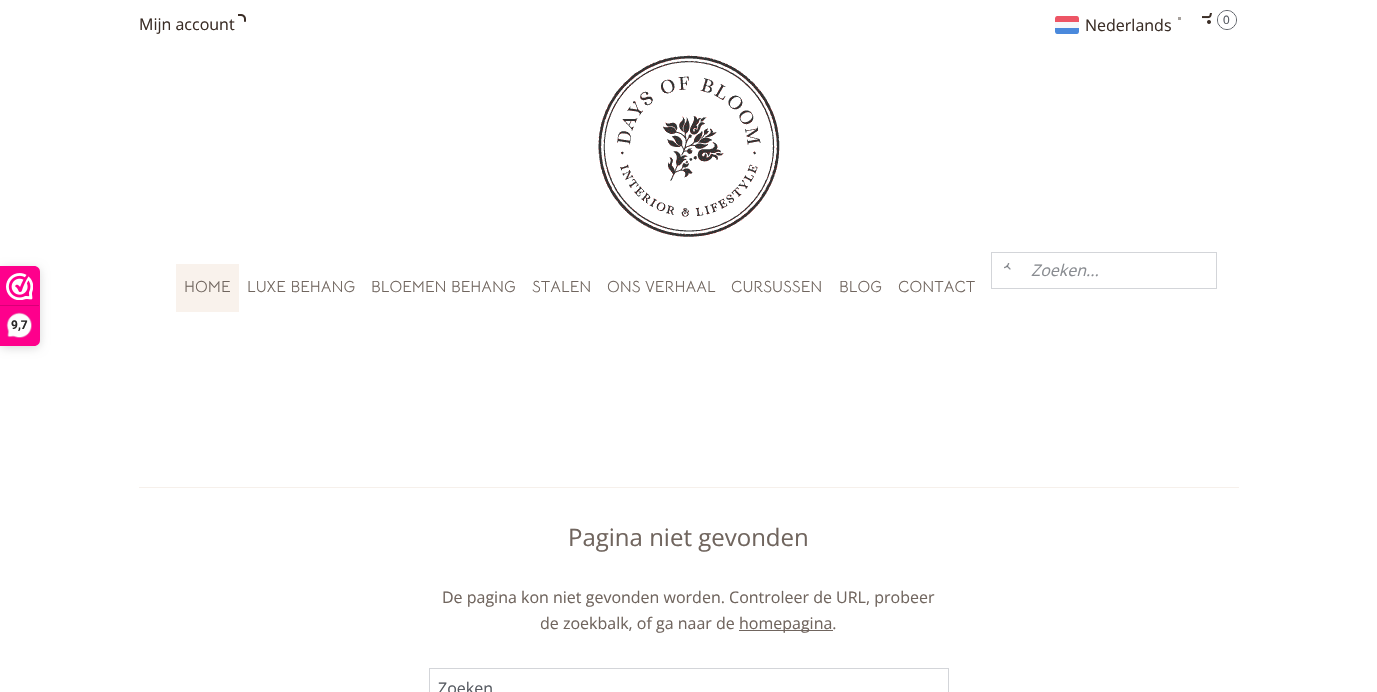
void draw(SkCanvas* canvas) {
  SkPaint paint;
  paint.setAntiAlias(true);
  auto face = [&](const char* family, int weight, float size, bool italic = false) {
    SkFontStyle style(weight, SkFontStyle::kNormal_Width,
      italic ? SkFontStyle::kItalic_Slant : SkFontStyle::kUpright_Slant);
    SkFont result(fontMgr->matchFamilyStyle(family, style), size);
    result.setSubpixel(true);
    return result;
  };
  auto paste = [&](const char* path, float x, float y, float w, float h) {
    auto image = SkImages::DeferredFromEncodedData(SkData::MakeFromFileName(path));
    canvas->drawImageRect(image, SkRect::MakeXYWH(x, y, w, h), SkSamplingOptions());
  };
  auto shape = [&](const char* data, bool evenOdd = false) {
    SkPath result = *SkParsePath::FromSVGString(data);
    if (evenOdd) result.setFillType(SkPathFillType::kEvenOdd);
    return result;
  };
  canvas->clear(0xffffffff);
  paint.setColor(0x26000000);
  paint.setMaskFilter(SkMaskFilter::MakeBlur(kNormal_SkBlurStyle, 5));
  canvas->drawRoundRect(SkRect::MakeXYWH(0, 268, 40, 80), 6, 6, paint);
  paint.setMaskFilter(nullptr);
  paint.setColor(0xfffe008c);
  canvas->drawPath(shape("M0 266H34C37.5 266 40 268.5 40 272V340C40 343.5 37.5 346 34 346H0Z"), paint);
  paste("img/1.png", 6, 273, 27, 27);
  paint.setColor(0xffd80077);
  canvas->drawRect(SkRect::MakeXYWH(0, 305, 39, 1), paint);
  paste("img/2.png", 6, 312, 26, 26);
  paste("img/3.png", 238, 14, 8, 8);
  paste("img/4.png", 1055, 16, 24, 18);
  paint.setColor(0xffa6a19d);
  canvas->drawRect(SkRect::MakeXYWH(1178, 17, 3, 3), paint);
  paste("img/5.png", 1202, 13, 10, 11);
  paint.setStroke(true);
  paint.setStrokeWidth(1);
  paint.setColor(0xff575b62);
  canvas->drawCircle(1227, 20, 9.5f, paint);
  paint.setStroke(false);
  paint.setColor(0xffffffff);
  canvas->drawCircle(1227, 20, 9, paint);
  paste("img/6.png", 598, 55, 182, 182);
  paint.setStroke(true);
  paint.setColor(0xffd3d5d9);
  canvas->drawRect(SkRect::MakeXYWH(991.5f, 252.5f, 225, 36), paint);
  paste("img/7.png", 1004, 263, 7, 7);
  paint.setStroke(false);
  {
    const struct { float x, y, w, h; SkColor color; } items[] = {
      {176, 264, 63, 48, 0xfff9f2ec},
      {139, 487, 1100, 1, 0xfff6f0eb},
      {739, 630, 94, 1, 0xff70655e},
    };
    for (auto [x, y, w, h, color] : items) {
      paint.setColor(color);
      canvas->drawRect(SkRect::MakeXYWH(x, y, w, h), paint);
    }
  }
  paint.setStroke(true);
  paint.setColor(0xffd3d5d9);
  canvas->drawRect(SkRect::MakeXYWH(429.5f, 668.5f, 519, 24), paint);
  auto f0 = face("Roboto", 700, 12);
  paint.setStroke(false);
  paint.setColor(0xff272626);
  canvas->drawString("9,7", 11, 329, f0, paint);
  auto f1 = face("Open Sans", 400, 16);
  paint.setColor(0xff3a2d26);
  canvas->drawString("Mijn account", 139, 30, f1, paint);
  canvas->drawString("Nederlands", 1085, 31, f1, paint);
  auto f2 = face("Liberation Sans", 400, 12);
  paint.setColor(0xff575b62);
  canvas->drawString("0", 1223, 24, f2, paint);
  auto f3 = face("Open Sans", 400, 16, true);
  paint.setColor(0xff898c91);
  canvas->drawString("Zoeken...", 1031, 276, f3, paint);
  auto f4 = face("Bellota Text", 400, 16);
  paint.setColor(0xff70655e);
  {
    const struct { const char* s; float x, y; } items[] = {
      {"HOME", 184, 292},
      {"LUXE BEHANG", 247, 292},
      {"BLOEMEN BEHANG", 371, 292},
      {"STALEN", 532, 292},
      {"ONS VERHAAL", 607, 292},
      {"CURSUSSEN", 731, 292},
      {"BLOG", 839, 292},
      {"CONTACT", 898, 292},
    };
    for (auto [s, x, y] : items) {
      canvas->drawString(s, x, y, f4, paint);
    }
  }
  auto f5 = face("Open Sans", 400, 24);
  canvas->drawString("Pagina niet gevonden", 568, 546, f5, paint);
  {
    const struct { const char* s; float x, y; } items[] = {
      {"De pagina kon niet gevonden worden. Controleer de URL, probeer", 442, 603},
      {"de zoekbalk, of ga naar de", 540, 629},
      {"homepagina.", 739, 629},
    };
    for (auto [s, x, y] : items) {
      canvas->drawString(s, x, y, f1, paint);
    }
  }
  paint.setColor(0xff575b62);
  canvas->drawString("Zoeken", 438, 694, f1, paint);
}
